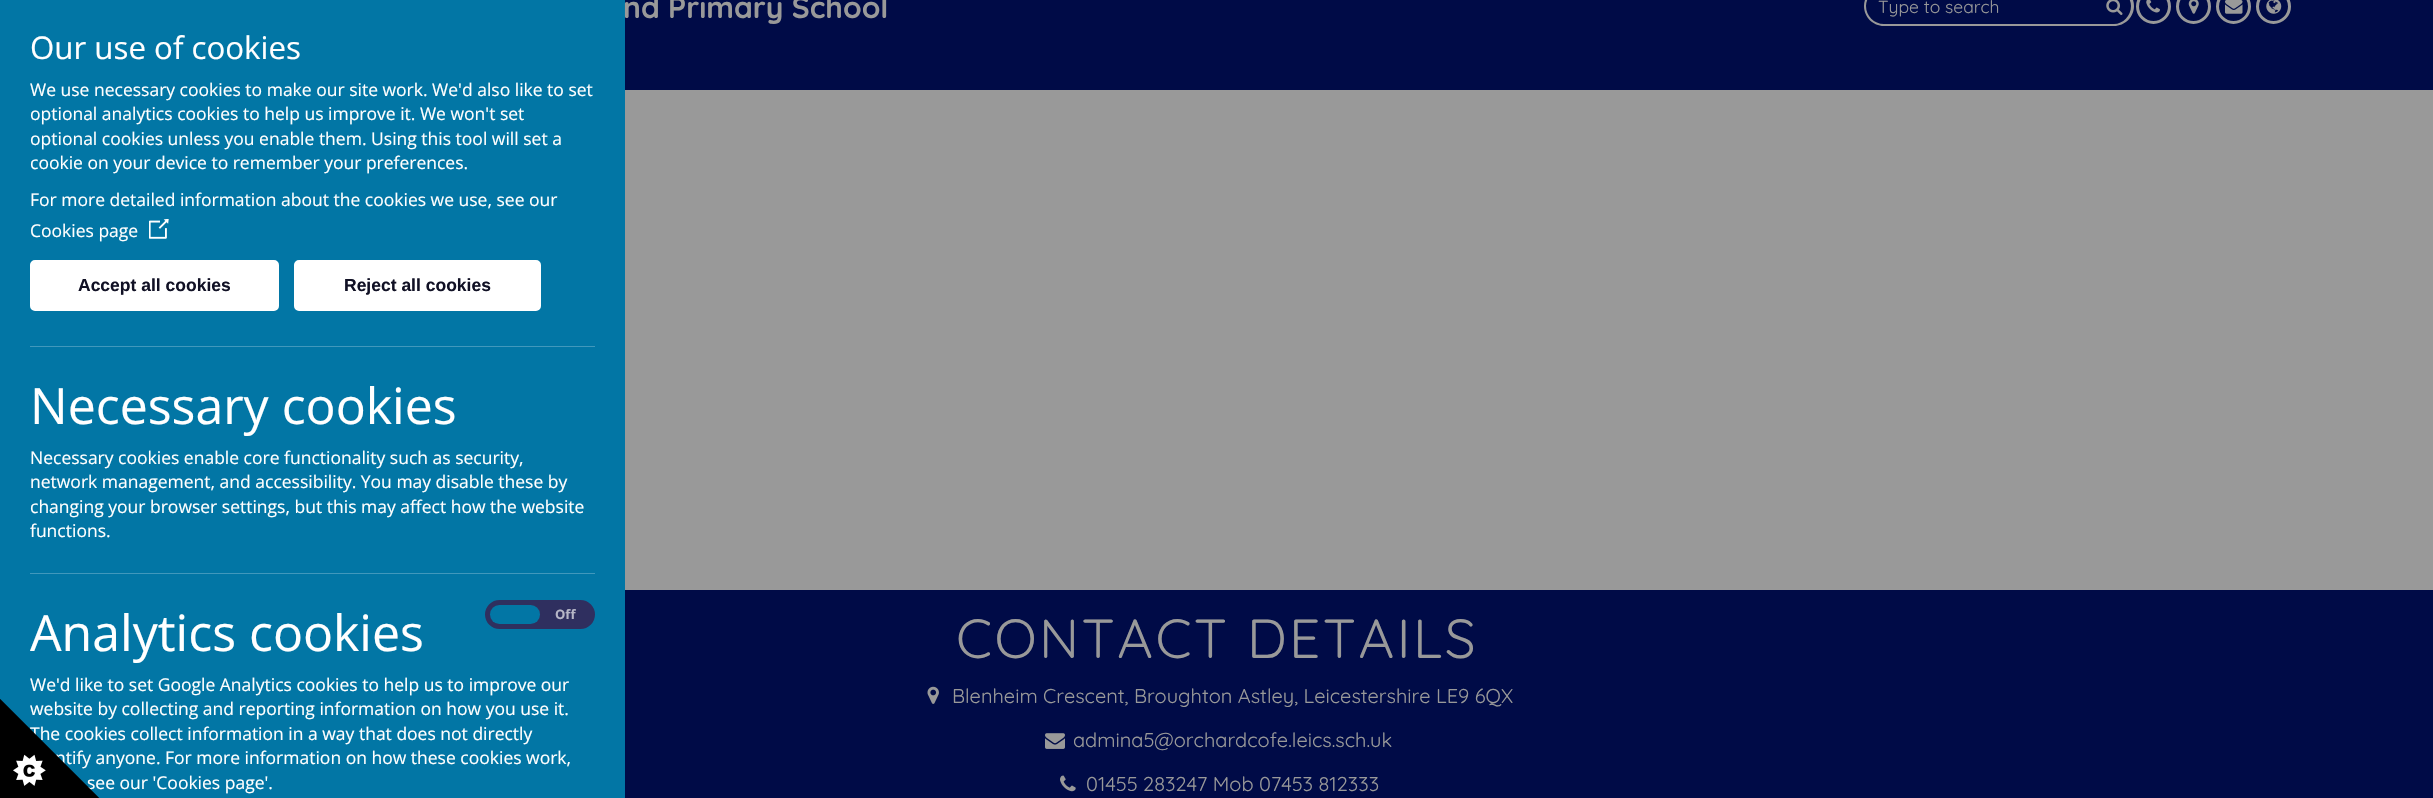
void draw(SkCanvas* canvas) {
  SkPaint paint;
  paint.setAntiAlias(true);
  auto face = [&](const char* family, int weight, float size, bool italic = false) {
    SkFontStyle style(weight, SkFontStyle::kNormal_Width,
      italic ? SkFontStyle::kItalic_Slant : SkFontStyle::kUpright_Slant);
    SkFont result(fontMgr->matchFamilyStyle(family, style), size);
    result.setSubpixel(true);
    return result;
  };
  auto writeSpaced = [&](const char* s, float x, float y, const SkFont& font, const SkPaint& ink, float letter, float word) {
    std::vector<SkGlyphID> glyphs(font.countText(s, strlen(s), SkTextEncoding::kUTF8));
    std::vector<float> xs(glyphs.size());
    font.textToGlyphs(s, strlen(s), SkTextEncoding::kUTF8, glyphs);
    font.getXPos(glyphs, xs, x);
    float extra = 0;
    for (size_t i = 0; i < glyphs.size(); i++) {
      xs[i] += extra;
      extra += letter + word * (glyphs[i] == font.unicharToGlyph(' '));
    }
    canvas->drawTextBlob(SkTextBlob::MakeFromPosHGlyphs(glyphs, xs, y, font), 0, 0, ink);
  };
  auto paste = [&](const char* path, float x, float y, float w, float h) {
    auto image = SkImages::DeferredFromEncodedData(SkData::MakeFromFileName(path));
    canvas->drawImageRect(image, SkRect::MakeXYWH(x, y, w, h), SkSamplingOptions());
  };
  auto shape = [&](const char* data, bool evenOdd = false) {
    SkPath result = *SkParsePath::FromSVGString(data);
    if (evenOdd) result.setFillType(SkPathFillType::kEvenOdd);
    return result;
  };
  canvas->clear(0xff999999);
  paint.setColor(0xff000b47);
  canvas->drawRect(SkRect::MakeXYWH(625, 0, 1808, 90), paint);
  paint.setColor(0xff999999);
  canvas->drawPath(shape("M1884-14H2100V26H1884C1873 26 1864 17 1864 6C1864-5 1873-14 1884-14ZM1884-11H2100V24H1884C1874 24 1866 16 1866 6C1866-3 1874-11 1884-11Z", true), paint);
  canvas->drawPath(shape("M2099-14H2114C2125-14 2134-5 2134 6C2134 17 2125 26 2114 26H2099ZM2099-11H2114C2123-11 2131-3 2131 6C2131 16 2123 24 2114 24H2099Z", true), paint);
  paste("img/1.png", 2106, 0, 17, 15);
  paint.setStroke(true);
  paint.setStrokeWidth(3);
  canvas->drawCircle(2153.5f, 6.5f, 16, paint);
  paste("img/2.png", 2146, 0, 14, 13);
  canvas->drawCircle(2193.5f, 6.5f, 16, paint);
  paste("img/3.png", 2188, 0, 11, 14);
  canvas->drawCircle(2233.5f, 6.5f, 16, paint);
  paste("img/4.png", 2225, 0, 18, 14);
  canvas->drawCircle(2273.5f, 6.5f, 16, paint);
  paste("img/5.png", 2266, 0, 16, 14);
  paint.setStroke(false);
  paint.setColor(0xff000b47);
  canvas->drawRect(SkRect::MakeXYWH(625, 590, 1808, 208), paint);
  paint.setColor(0xff0276a5);
  canvas->drawRect(SkRect::MakeXYWH(0, 0, 625, 798), paint);
  paste("img/6.png", 149, 219, 20, 20);
  paint.setColor(0xffffffff);
  canvas->drawRoundRect(SkRect::MakeXYWH(31.5f, 261.5f, 246, 48), 3.5f, 3.5f, paint);
  paint.setStroke(true);
  canvas->drawRoundRect(SkRect::MakeXYWH(31.5f, 261.5f, 246, 48), 3.5f, 3.5f, paint);
  paint.setStroke(false);
  canvas->drawRoundRect(SkRect::MakeXYWH(295.5f, 261.5f, 244, 48), 3.5f, 3.5f, paint);
  paint.setStroke(true);
  canvas->drawRoundRect(SkRect::MakeXYWH(295.5f, 261.5f, 244, 48), 3.5f, 3.5f, paint);
  paint.setStroke(false);
  paint.setColor(0xff4198bc);
  canvas->drawRect(SkRect::MakeXYWH(30, 346, 565, 1), paint);
  canvas->drawRect(SkRect::MakeXYWH(30, 573, 565, 1), paint);
  paint.setColor(0xff2f2f5f);
  canvas->drawRoundRect(SkRect::MakeXYWH(487.5f, 602.5f, 105, 24), 12, 12, paint);
  paint.setStroke(true);
  paint.setStrokeWidth(5);
  canvas->drawRoundRect(SkRect::MakeXYWH(487.5f, 602.5f, 105, 24), 12, 12, paint);
  paint.setStroke(false);
  paint.setColor(0xff0276a5);
  canvas->drawRoundRect(SkRect::MakeXYWH(490, 605, 50, 19), 9.5f, 9.5f, paint);
  paste("img/8.png", 927, 686, 12, 18);
  paste("img/9.png", 1045, 733, 20, 16);
  paste("img/10.png", 1060, 775, 16, 17);
  auto f0 = face("Quicksand", 700, 30);
  paint.setColor(0xff999999);
  canvas->drawString("nd Primary School", 623, 18, f0, paint);
  auto f1 = face("Quicksand", 400, 17.5f);
  canvas->drawString("Type to search", 1878, 13, f1, paint);
  auto f2 = face("Open Sans", 400, 31.25f);
  paint.setColor(0xffffffff);
  canvas->drawString("Our use of cookies", 30, 59, f2, paint);
  auto f3 = face("Open Sans", 400, 17.5f);
  {
    const struct { const char* s; float x, y; } items[] = {
      {"We use necessary cookies to make our site work. We'd also like to set", 30, 96},
      {"optional analytics cookies to help us improve it. We won't set", 30, 120},
      {"optional cookies unless you enable them. Using this tool will set a", 30, 145},
      {"cookie on your device to remember your preferences.", 30, 169},
      {"For more detailed information about the cookies we use, see our", 30, 206},
      {"Cookies page", 30, 237},
    };
    for (auto [s, x, y] : items) {
      canvas->drawString(s, x, y, f3, paint);
    }
  }
  auto f4 = face("Liberation Sans", 700, 17.5f);
  paint.setColor(0xff111125);
  canvas->drawString("Accept all cookies", 78, 291, f4, paint);
  canvas->drawString("Reject all cookies", 344, 291, f4, paint);
  auto f5 = face("Open Sans", 400, 50);
  paint.setColor(0xffffffff);
  canvas->drawString("Necessary cookies", 30, 424, f5, paint);
  {
    const struct { const char* s; float x, y; } items[] = {
      {"Necessary cookies enable core functionality such as security,", 30, 464},
      {"network management, and accessibility. You may disable these by", 30, 488},
      {"changing your browser settings, but this may affect how the website", 30, 513},
      {"functions.", 30, 537},
    };
    for (auto [s, x, y] : items) {
      canvas->drawString(s, x, y, f3, paint);
    }
  }
  canvas->drawString("Analytics cookies", 30, 651, f5, paint);
  auto f6 = face("Open Sans", 700, 13);
  paint.setColor(0xffb6b6c7);
  canvas->drawString("Off", 555, 619, f6, paint);
  paint.setColor(0xffffffff);
  {
    const struct { const char* s; float x, y; } items[] = {
      {"We'd like to set Google Analytics cookies to help us to improve our", 30, 691},
      {"website by collecting and reporting information on how you use it.", 30, 715},
      {"The cookies collect information in a way that does not directly", 30, 740},
      {"ntify anyone. For more information on how these cookies work,", 55, 764},
      {"see our 'Cookies page'.", 87, 789},
    };
    for (auto [s, x, y] : items) {
      canvas->drawString(s, x, y, f3, paint);
    }
  }
  paste("img/7.png", 0, 699, 100, 99);
  auto f7 = face("Quicksand", 400, 55);
  paint.setColor(0xff999999);
  writeSpaced("CONTACT DETAILS", 956, 658, f7, paint, 2.5f, 0);
  auto f8 = face("Quicksand", 400, 20);
  {
    const struct { const char* s; float x, y; } items[] = {
      {"Blenheim Crescent, Broughton Astley, Leicestershire LE9 6QX", 952, 703},
      {"admina5@orchardcofe.leics.sch.uk", 1073, 747},
      {"01455 283247 Mob 07453 812333", 1086, 791},
    };
    for (auto [s, x, y] : items) {
      canvas->drawString(s, x, y, f8, paint);
    }
  }
}
